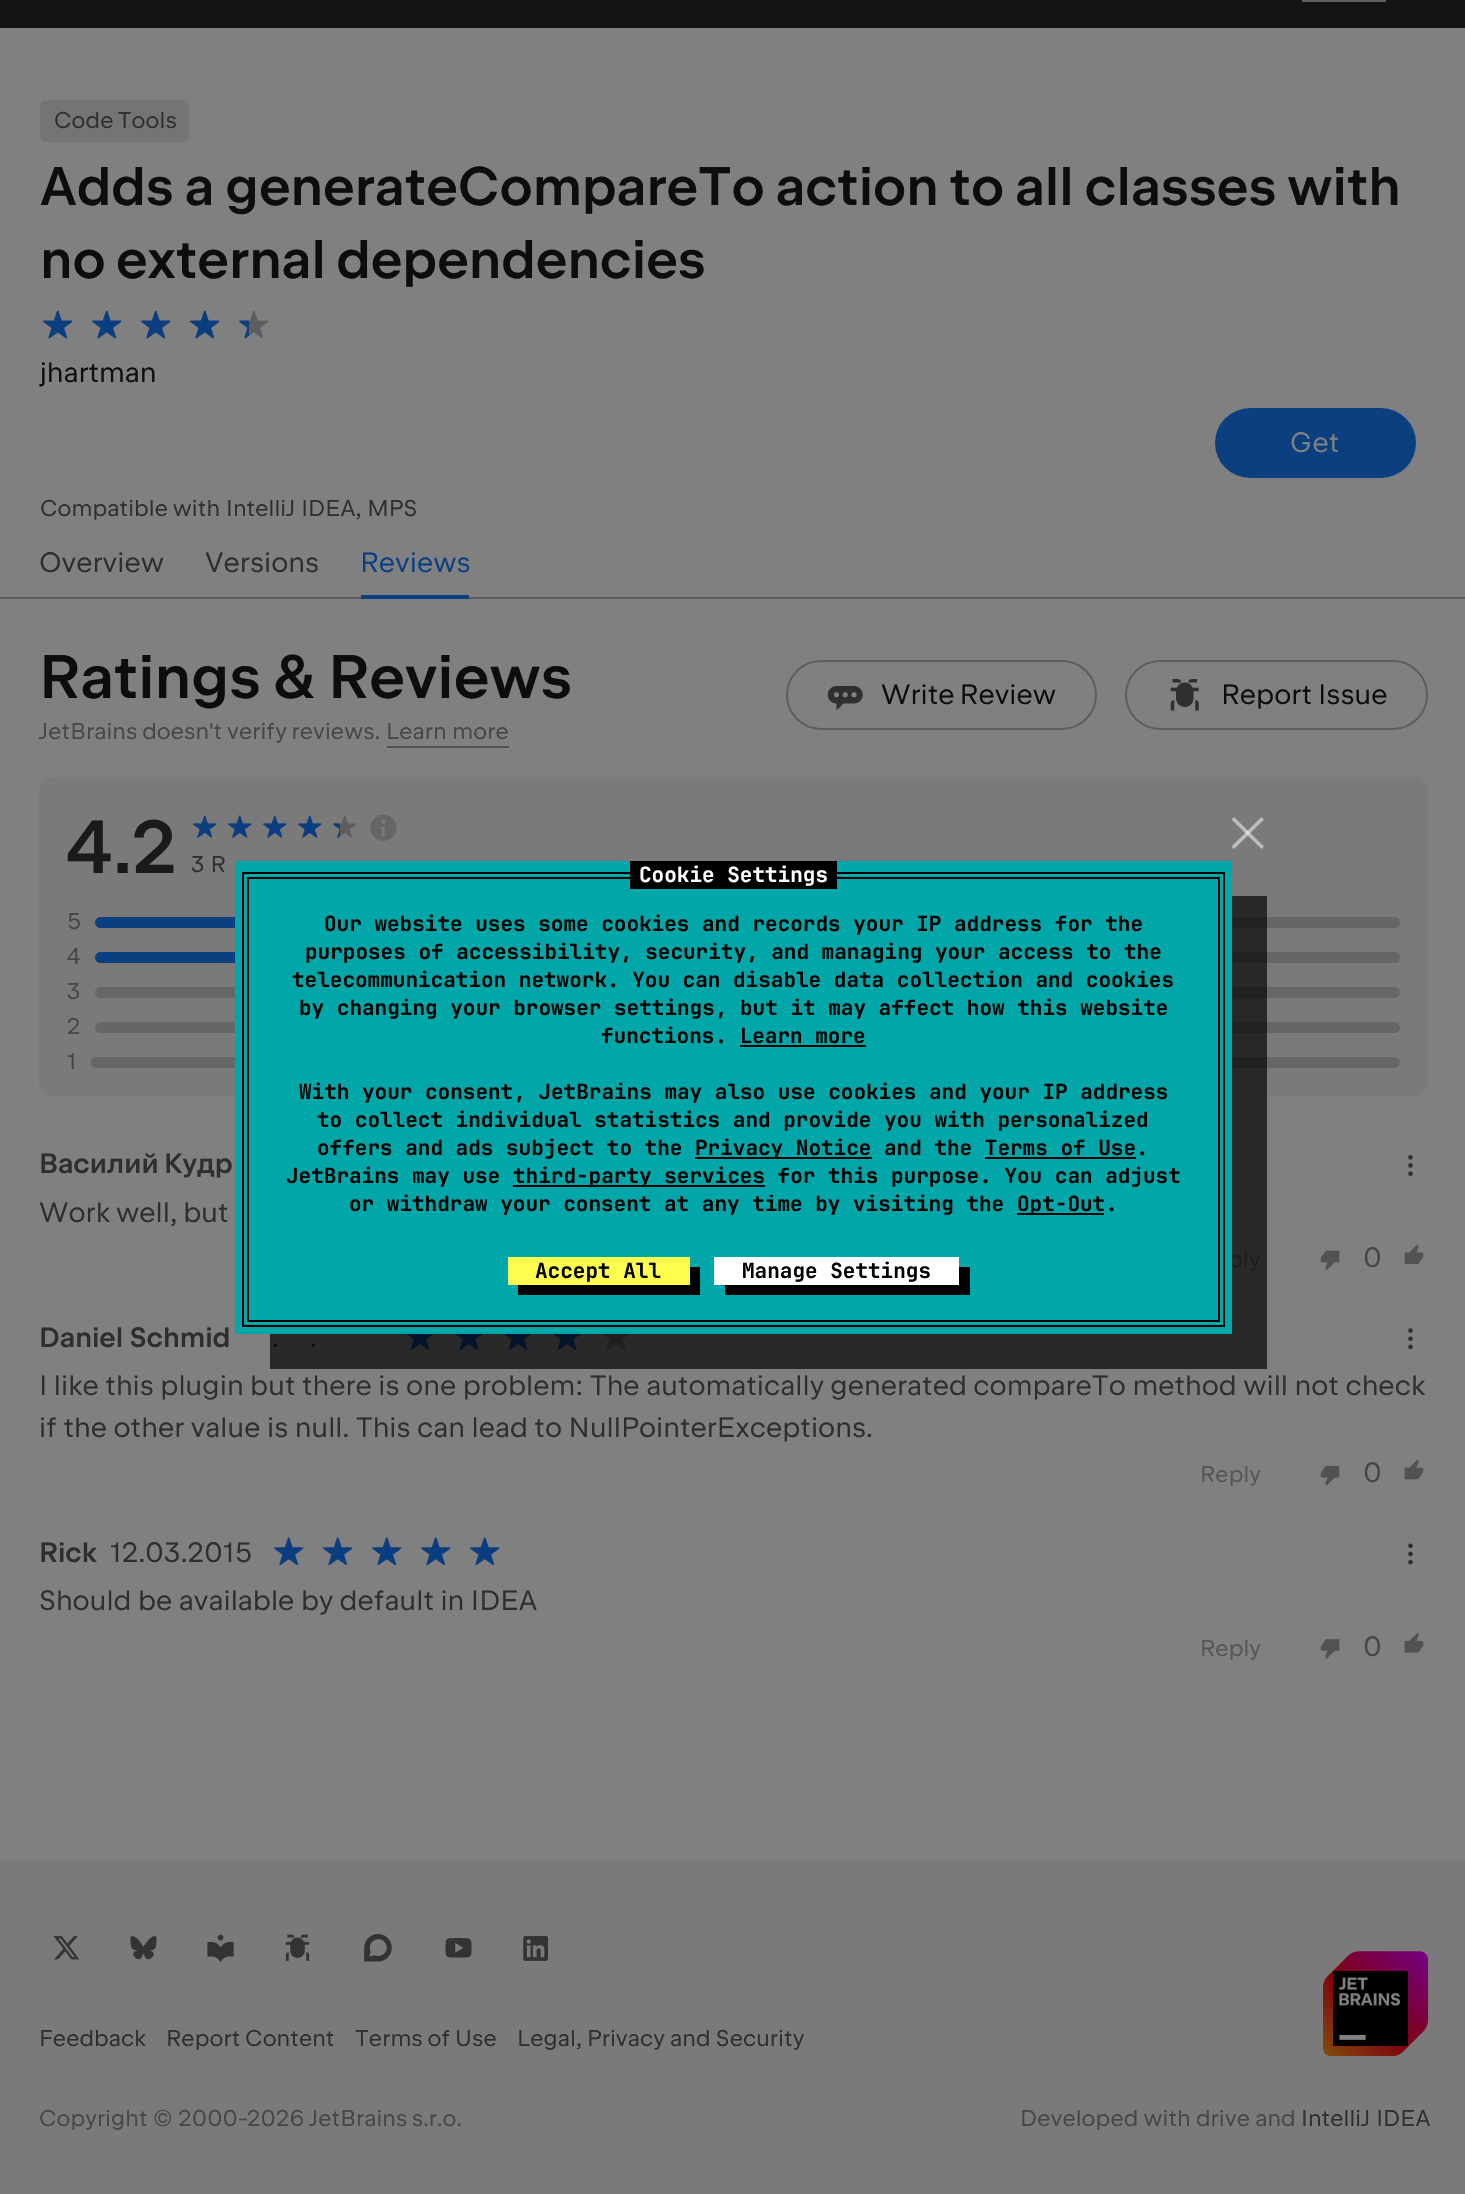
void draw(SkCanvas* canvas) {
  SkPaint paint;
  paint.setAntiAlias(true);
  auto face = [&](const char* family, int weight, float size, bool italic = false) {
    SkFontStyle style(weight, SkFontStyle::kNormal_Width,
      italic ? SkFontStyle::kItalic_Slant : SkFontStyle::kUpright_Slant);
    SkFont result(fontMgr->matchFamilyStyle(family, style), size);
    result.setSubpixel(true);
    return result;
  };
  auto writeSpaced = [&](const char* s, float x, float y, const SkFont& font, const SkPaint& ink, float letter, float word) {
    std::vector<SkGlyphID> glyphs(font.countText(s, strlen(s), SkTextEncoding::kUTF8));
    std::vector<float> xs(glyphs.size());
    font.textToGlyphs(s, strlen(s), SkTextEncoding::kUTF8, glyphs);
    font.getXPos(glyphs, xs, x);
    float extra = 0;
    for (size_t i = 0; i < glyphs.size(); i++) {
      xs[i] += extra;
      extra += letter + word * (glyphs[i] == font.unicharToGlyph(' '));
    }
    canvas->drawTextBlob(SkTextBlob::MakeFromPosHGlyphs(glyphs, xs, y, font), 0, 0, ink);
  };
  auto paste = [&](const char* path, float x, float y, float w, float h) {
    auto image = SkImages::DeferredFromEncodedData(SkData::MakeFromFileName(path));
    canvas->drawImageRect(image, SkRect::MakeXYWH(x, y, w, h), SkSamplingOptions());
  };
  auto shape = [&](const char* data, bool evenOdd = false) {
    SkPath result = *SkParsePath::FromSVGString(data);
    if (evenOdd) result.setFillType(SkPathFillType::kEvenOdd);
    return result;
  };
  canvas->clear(0xff808080);
  paint.setColor(0xff5d5d5e);
  canvas->drawRect(SkRect::MakeXYWH(0, 597, 1465, 2), paint);
  paint.setColor(0xff141416);
  canvas->drawRect(SkRect::MakeXYWH(0, 0, 1465, 28), paint);
  paint.setColor(0xff5f6060);
  canvas->drawPath(shape("M1386-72H1302V-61H1386ZM1386-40H1302V-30H1386ZM1302-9H1386V2H1302Z"), paint);
  paint.setColor(0xff747474);
  canvas->drawRoundRect(SkRect::MakeXYWH(40, 100, 149, 42), 7, 7, paint);
  paste("img/1.png", 43, 310, 30, 29);
  paste("img/2.png", 43, 310, 30, 29);
  paste("img/1.png", 92, 310, 30, 29);
  paste("img/2.png", 92, 310, 30, 29);
  paste("img/1.png", 141, 310, 30, 29);
  paste("img/2.png", 141, 310, 30, 29);
  paste("img/1.png", 190, 310, 30, 29);
  paste("img/2.png", 190, 310, 30, 29);
  paste("img/1.png", 239, 310, 30, 29);
  paste("img/3.png", 239, 320, 10, 19);
  paint.setColor(0xff0b3f80);
  canvas->drawRoundRect(SkRect::MakeXYWH(1215, 408, 201, 70), 35, 35, paint);
  canvas->drawRect(SkRect::MakeXYWH(361, 595, 108, 4), paint);
  paint.setColor(0xff525252);
  canvas->drawRect(SkRect::MakeXYWH(387, 746, 122, 2), paint);
  paste("img/4.png", 827, 686, 36, 25);
  paint.setStroke(true);
  paint.setStrokeWidth(2);
  paint.setColor(0xff5d5d5e);
  canvas->drawRoundRect(SkRect::MakeXYWH(787, 661, 309, 68), 34, 34, paint);
  paste("img/5.png", 1170, 679, 29, 32);
  canvas->drawRoundRect(SkRect::MakeXYWH(1126, 661, 301, 68), 34, 34, paint);
  paint.setStroke(false);
  paint.setColor(0xff7a7a7a);
  canvas->drawRoundRect(SkRect::MakeXYWH(39, 777, 1389, 319), 14, 14, paint);
  paste("img/6.png", 193, 815, 24, 23);
  paste("img/7.png", 193, 815, 24, 23);
  paste("img/6.png", 228, 815, 24, 23);
  paste("img/7.png", 228, 815, 24, 23);
  paste("img/6.png", 263, 815, 24, 23);
  paste("img/7.png", 263, 815, 24, 23);
  paste("img/6.png", 298, 815, 24, 23);
  paste("img/7.png", 298, 815, 24, 23);
  paste("img/6.png", 333, 815, 24, 23);
  paste("img/8.png", 333, 823, 7, 15);
  paste("img/9.png", 370, 814, 27, 27);
  paint.setColor(0xff666666);
  canvas->drawRoundRect(SkRect::MakeXYWH(95, 917, 1305, 11), 5.5f, 5.5f, paint);
  paint.setColor(0xff0b3f80);
  canvas->drawPath(shape("M100.5 917H530V928H100.5C97.5 928 95 925.5 95 922.5C95 919.5 97.5 917 100.5 917Z"), paint);
  paint.setColor(0xff666666);
  canvas->drawRoundRect(SkRect::MakeXYWH(95, 952, 1305, 11), 5.5f, 5.5f, paint);
  paint.setColor(0xff0b3f80);
  canvas->drawPath(shape("M100.5 952H964V963H100.5C97.5 963 95 960.5 95 957.5C95 954.5 97.5 952 100.5 952Z"), paint);
  paint.setColor(0xff666666);
  canvas->drawRoundRect(SkRect::MakeXYWH(95, 987, 1305, 11), 5.5f, 5.5f, paint);
  canvas->drawRoundRect(SkRect::MakeXYWH(95, 1022, 1305, 11), 5.5f, 5.5f, paint);
  canvas->drawRoundRect(SkRect::MakeXYWH(91, 1057, 1309, 11), 5.5f, 5.5f, paint);
  paste("img/10.png", 1408, 1155, 5, 21);
  paste("img/11.png", 1320, 1250, 20, 21);
  paste("img/12.png", 1404, 1244, 20, 21);
  paste("img/13.png", 406, 1334, 28, 16);
  paste("img/14.png", 406, 1334, 28, 16);
  paste("img/13.png", 455, 1334, 28, 16);
  paste("img/14.png", 455, 1334, 28, 16);
  paste("img/13.png", 504, 1334, 28, 16);
  paste("img/14.png", 504, 1334, 28, 16);
  paste("img/13.png", 553, 1334, 28, 16);
  paste("img/14.png", 553, 1334, 28, 16);
  paste("img/13.png", 602, 1334, 28, 16);
  paste("img/15.png", 1408, 1328, 5, 22);
  paste("img/16.png", 1320, 1465, 20, 21);
  paste("img/17.png", 1404, 1459, 20, 21);
  paste("img/18.png", 274, 1537, 30, 28);
  paste("img/19.png", 274, 1537, 30, 29);
  paste("img/18.png", 323, 1537, 30, 28);
  paste("img/19.png", 323, 1537, 30, 29);
  paste("img/18.png", 372, 1537, 30, 28);
  paste("img/19.png", 372, 1537, 30, 29);
  paste("img/18.png", 421, 1537, 30, 28);
  paste("img/19.png", 421, 1537, 30, 29);
  paste("img/18.png", 470, 1537, 30, 28);
  paste("img/19.png", 470, 1537, 30, 29);
  paste("img/20.png", 1408, 1543, 5, 22);
  paste("img/21.png", 1320, 1639, 20, 20);
  paste("img/22.png", 1404, 1632, 20, 21);
  paint.setColor(0xff7a7a7a);
  canvas->drawRect(SkRect::MakeXYWH(0, 1860, 1465, 334), paint);
  paste("img/23.png", 53, 1936, 27, 24);
  paste("img/24.png", 130, 1936, 27, 24);
  paste("img/25.png", 207, 1934, 27, 29);
  paste("img/26.png", 285, 1934, 25, 27);
  paste("img/27.png", 364, 1933, 28, 29);
  paste("img/28.png", 445, 1938, 27, 20);
  paste("img/29.png", 523, 1936, 25, 25);
  paste("img/30.png", 1323, 1951, 105, 105);
  paint.setColor(0xffbdbdbd);
  canvas->drawPath(shape("M1231.5 846.5L1261.5 817L1264 819.5L1234 849Z"), paint);
  paint.setColor(0x80ffffff);
  canvas->drawPath(shape("M1234 817L1264 846.5L1261.5 849L1231.5 819.5Z"), paint);
  auto f0 = face("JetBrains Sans", 400, 22.75f);
  paint.setColor(0xff2e2e2f);
  writeSpaced("Code Tools", 54, 128, f0, paint, 0.1f, -1.5f);
  auto f1 = face("JetBrains Sans", 500, 54.25f);
  paint.setColor(0xff0d0d0e);
  writeSpaced("Adds a generateCompareTo action to all classes with", 40, 205, f1, paint, 0, -1.5f);
  writeSpaced("no external dependencies", 40, 278, f1, paint, 0, -2);
  auto f2 = face("JetBrains Sans", 400, 28);
  writeSpaced("jhartman", 40, 382, f2, paint, 0.04f, 0);
  paint.setColor(0xff808080);
  writeSpaced("Get", 1290, 452, f2, paint, 0.04f, 0);
  paint.setColor(0xff2e2e2f);
  writeSpaced("Compatible with", 40, 516, f0, paint, 0.1f, -1);
  writeSpaced("IntelliJ IDEA, MPS", 226, 516, f0, paint, 0.1f, 0);
  writeSpaced("Overview", 39, 572, f2, paint, 0.04f, 0);
  writeSpaced("Versions", 205, 572, f2, paint, 0.04f, 0);
  paint.setColor(0xff0b3f80);
  writeSpaced("Reviews", 360, 572, f2, paint, 0.04f, 0);
  auto f3 = face("JetBrains Sans", 500, 61.25f);
  paint.setColor(0xff0d0d0e);
  writeSpaced("Ratings & Reviews", 39, 698, f3, paint, 0, -2);
  paint.setColor(0xff464647);
  writeSpaced("JetBrains doesn't verify reviews.", 39, 739, f0, paint, 0.1f, -1);
  writeSpaced("Learn more", 386, 739, f0, paint, 0.1f, 0);
  paint.setColor(0xff0d0d0e);
  writeSpaced("Write Review", 881, 704, f2, paint, 0.04f, -2);
  writeSpaced("Report Issue", 1221, 704, f2, paint, 0.04f, -1);
  auto f4 = face("JetBrains Sans", 600, 75);
  paint.setColor(0xff1a1a1a);
  canvas->drawString("4.2", 67, 873, f4, paint);
  paint.setColor(0xff2e2e2f);
  writeSpaced("3 R", 191, 872, f0, paint, 0.1f, 0);
  paint.setColor(0xff464647);
  {
    const struct { const char* s; float x, y; } items[] = {
      {"5", 67, 929},
      {"4", 67, 964},
      {"3", 67, 999},
      {"2", 67, 1034},
      {"1", 67, 1069},
    };
    for (auto [s, x, y] : items) {
      writeSpaced(s, x, y, f0, paint, 0.1f, 0);
    }
  }
  auto f5 = face("JetBrains Sans", 500, 28);
  paint.setColor(0xff2e2e2f);
  writeSpaced("Василий Кудр", 39, 1173, f5, paint, 0, -1);
  writeSpaced("Work well, but", 39, 1222, f2, paint, 0.04f, -1);
  paint.setColor(0xff555556);
  writeSpaced("ply", 1228, 1267, f0, paint, 0.1f, 0);
  paint.setColor(0xff464647);
  writeSpaced("0", 1363, 1267, f2, paint, 0.04f, 0);
  paint.setColor(0xff2e2e2f);
  canvas->drawString("Daniel Schmid", 39, 1347, f5, paint);
  writeSpaced(".", 272, 1347, f2, paint, 0.04f, 0);
  writeSpaced(".", 310, 1347, f2, paint, 0.04f, 0);
  writeSpaced("I like this plugin but there is one problem: The automatically generated compareTo method will not check", 39, 1395, f2, paint, 0.04f, -0.5f);
  writeSpaced("if the other value is null. This can lead to NullPointerExceptions.", 39, 1437, f2, paint, 0.04f, -0.5f);
  paint.setColor(0xff555556);
  writeSpaced("Reply", 1200, 1482, f0, paint, 0.1f, 0);
  paint.setColor(0xff464647);
  writeSpaced("0", 1363, 1482, f2, paint, 0.04f, 0);
  paint.setColor(0xff2e2e2f);
  canvas->drawString("Rick", 39, 1562, f5, paint);
  writeSpaced("12.03.2015", 110, 1562, f2, paint, 0.04f, 0);
  writeSpaced("Should be available by default in IDEA", 39, 1610, f2, paint, 0.04f, -0.5f);
  paint.setColor(0xff555556);
  writeSpaced("Reply", 1200, 1656, f0, paint, 0.1f, 0);
  paint.setColor(0xff464647);
  writeSpaced("0", 1363, 1656, f2, paint, 0.04f, 0);
  paint.setColor(0xff2e2e2f);
  writeSpaced("Feedback", 39, 2046, f0, paint, 0.1f, 0);
  writeSpaced("Report Content", 166, 2046, f0, paint, 0.1f, -1);
  writeSpaced("Terms of Use", 355, 2046, f0, paint, 0.1f, -1);
  writeSpaced("Legal, Privacy and Security", 517, 2046, f0, paint, 0.1f, -0.5f);
  paint.setColor(0xff464647);
  writeSpaced("Copyright © 2000-", 39, 2126, f0, paint, 0.1f, 0);
  writeSpaced("2026", 247, 2126, f0, paint, 0.1f, 0);
  writeSpaced("JetBrains s.r.o.", 309, 2126, f0, paint, 0.1f, -1.5f);
  writeSpaced("Developed with drive and", 1020, 2126, f0, paint, 0.1f, -0.5f);
  paint.setColor(0xff2e2e2f);
  writeSpaced("IntelliJ IDEA", 1301, 2126, f0, paint, 0.1f, 0);
  paint.setColor(0xad000000);
  canvas->drawPath(shape("M270 1334V1369H1267V896H1232V1334Z"), paint);
  {
    const struct { float x, y, w, h; SkColor color; } items[] = {
      {235, 861, 997, 473, 0xff01a7a8},
      {247, 877, 973, 2, 0xff000000},
      {1218, 877, 2, 444, 0xff000000},
      {247, 877, 2, 380, 0xff000000},
      {242, 872, 983, 2, 0xff000000},
      {630, 861, 207, 28, 0xff000000},
    };
    for (auto [x, y, w, h, color] : items) {
      paint.setColor(color);
      canvas->drawRect(SkRect::MakeXYWH(x, y, w, h), paint);
    }
  }
  auto f6 = face("JetBrains Mono", 700, 21);
  paint.setColor(0xffffffff);
  canvas->drawString("Cookie Settings", 639, 882, f6, paint);
  paint.setColor(0xff000000);
  canvas->drawRect(SkRect::MakeXYWH(1223, 872, 2, 455), paint);
  canvas->drawRect(SkRect::MakeXYWH(242, 872, 2, 383), paint);
  {
    const struct { const char* s; float x, y; } items[] = {
      {"Our website uses some cookies and records your IP address for the", 324, 931},
      {"purposes of accessibility, security, and managing your access to the", 305, 959},
      {"telecommunication network. You can disable data collection and cookies", 292, 987},
      {"by changing your browser settings, but it may affect how this website", 299, 1015},
      {"functions. Learn more", 601, 1043},
    };
    for (auto [s, x, y] : items) {
      canvas->drawString(s, x, y, f6, paint);
    }
  }
  canvas->drawRect(SkRect::MakeXYWH(740, 1045, 126, 2), paint);
  {
    const struct { const char* s; float x, y; } items[] = {
      {"With your consent, JetBrains may also use cookies and your IP address", 299, 1099},
      {"to collect individual statistics and provide you with personalized", 317, 1127},
      {"offers and ads subject to the", 317, 1155},
    };
    for (auto [s, x, y] : items) {
      canvas->drawString(s, x, y, f6, paint);
    }
  }
  canvas->drawRect(SkRect::MakeXYWH(695, 1157, 177, 2), paint);
  canvas->drawString("Privacy Notice and the Terms of Use.", 695, 1155, f6, paint);
  canvas->drawRect(SkRect::MakeXYWH(985, 1157, 151, 2), paint);
  canvas->drawString("JetBrains may use", 286, 1183, f6, paint);
  canvas->drawRect(SkRect::MakeXYWH(513, 1185, 252, 2), paint);
  canvas->drawString("third-party services for this purpose. You can adjust", 513, 1183, f6, paint);
  canvas->drawString("or withdraw your consent at any time by visiting the", 349, 1211, f6, paint);
  canvas->drawRect(SkRect::MakeXYWH(1017, 1213, 87, 2), paint);
  canvas->drawString("Opt-Out.", 1017, 1211, f6, paint);
  {
    const struct { float x, y, w, h; SkColor color; } items[] = {
      {247, 1320, 973, 2, 0xff000000},
      {247, 1257, 2, 64, 0xff000000},
      {242, 1325, 983, 2, 0xff000000},
      {242, 1255, 2, 72, 0xff000000},
    };
    for (auto [x, y, w, h, color] : items) {
      paint.setColor(color);
      canvas->drawRect(SkRect::MakeXYWH(x, y, w, h), paint);
    }
  }
  canvas->drawPath(shape("M518 1284V1295H700V1267H690V1284Z"), paint);
  paint.setColor(0xfffefc4f);
  canvas->drawRect(SkRect::MakeXYWH(508, 1257, 182, 28), paint);
  paint.setColor(0xff000000);
  canvas->drawString("Accept All", 535, 1278, f6, paint);
  canvas->drawPath(shape("M725 1284V1295H970V1267H959V1284Z"), paint);
  paint.setColor(0xffffffff);
  canvas->drawRect(SkRect::MakeXYWH(714, 1257, 245, 28), paint);
  paint.setColor(0xff000000);
  canvas->drawString("Manage Settings", 742, 1278, f6, paint);
}
